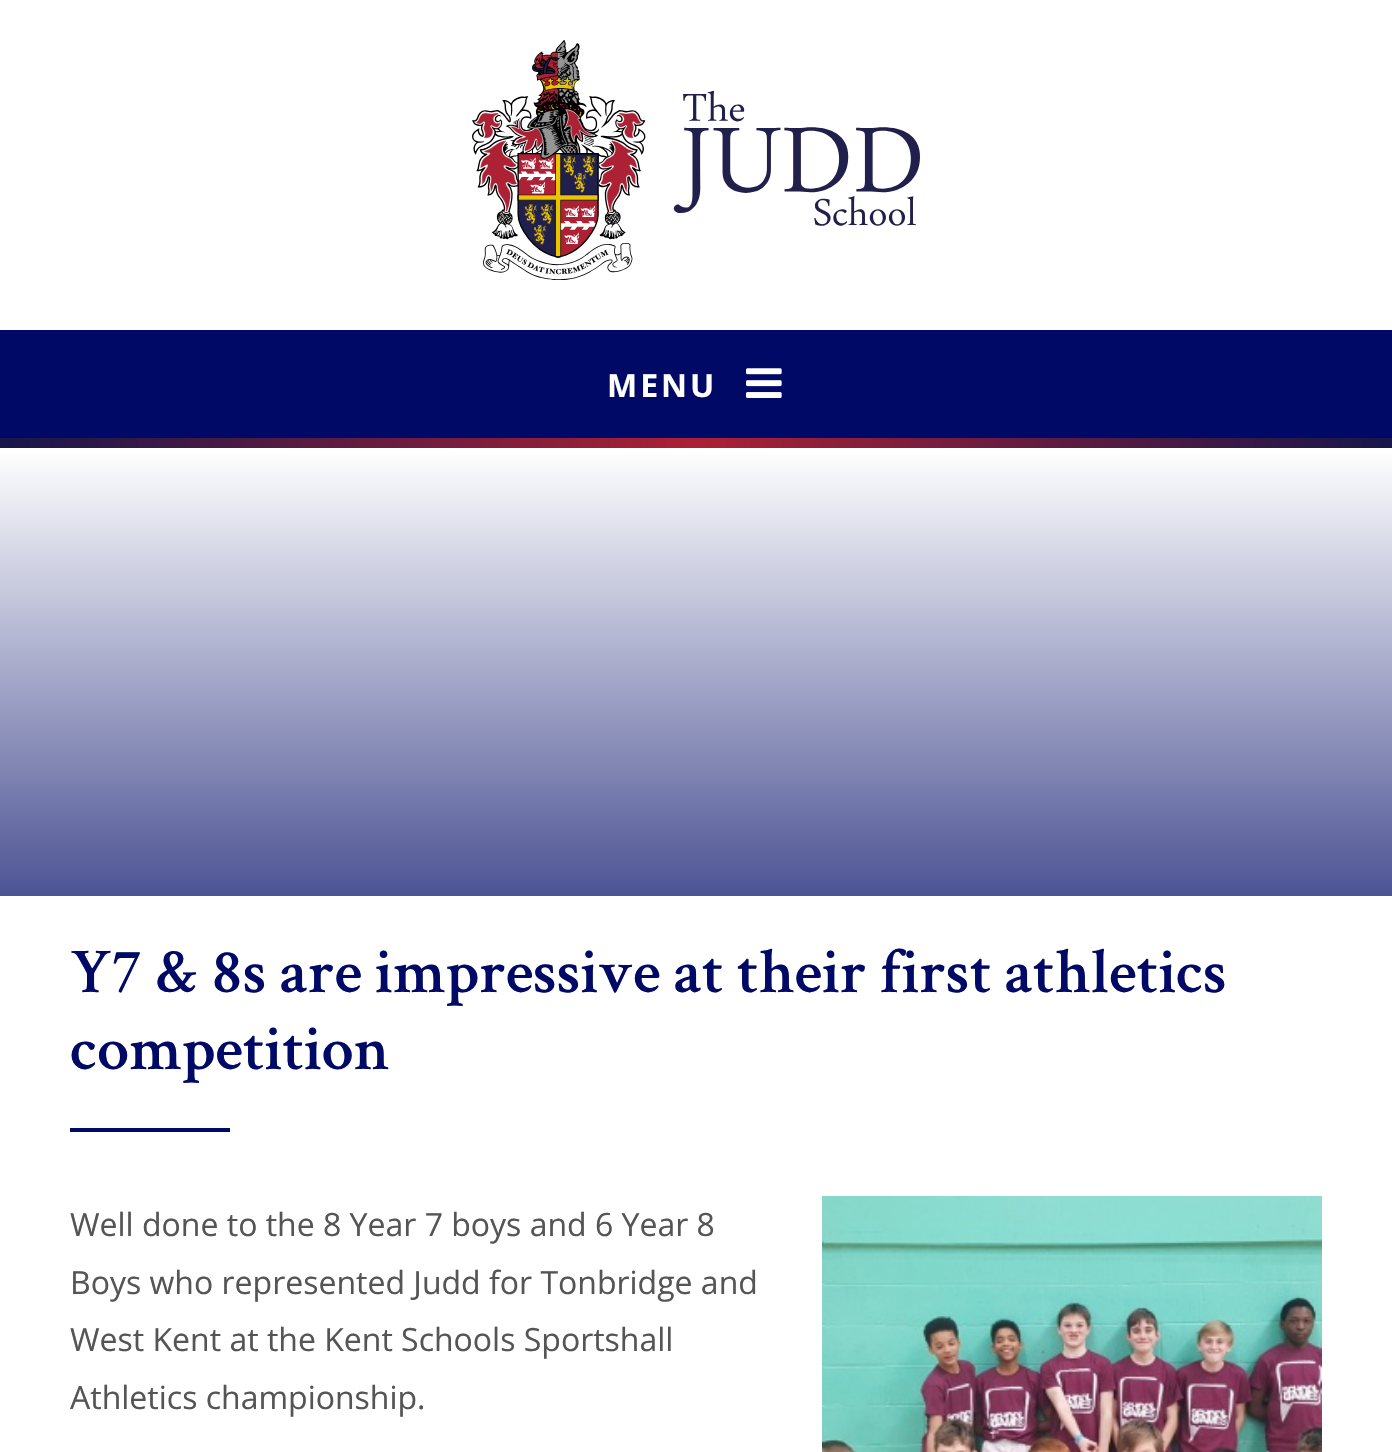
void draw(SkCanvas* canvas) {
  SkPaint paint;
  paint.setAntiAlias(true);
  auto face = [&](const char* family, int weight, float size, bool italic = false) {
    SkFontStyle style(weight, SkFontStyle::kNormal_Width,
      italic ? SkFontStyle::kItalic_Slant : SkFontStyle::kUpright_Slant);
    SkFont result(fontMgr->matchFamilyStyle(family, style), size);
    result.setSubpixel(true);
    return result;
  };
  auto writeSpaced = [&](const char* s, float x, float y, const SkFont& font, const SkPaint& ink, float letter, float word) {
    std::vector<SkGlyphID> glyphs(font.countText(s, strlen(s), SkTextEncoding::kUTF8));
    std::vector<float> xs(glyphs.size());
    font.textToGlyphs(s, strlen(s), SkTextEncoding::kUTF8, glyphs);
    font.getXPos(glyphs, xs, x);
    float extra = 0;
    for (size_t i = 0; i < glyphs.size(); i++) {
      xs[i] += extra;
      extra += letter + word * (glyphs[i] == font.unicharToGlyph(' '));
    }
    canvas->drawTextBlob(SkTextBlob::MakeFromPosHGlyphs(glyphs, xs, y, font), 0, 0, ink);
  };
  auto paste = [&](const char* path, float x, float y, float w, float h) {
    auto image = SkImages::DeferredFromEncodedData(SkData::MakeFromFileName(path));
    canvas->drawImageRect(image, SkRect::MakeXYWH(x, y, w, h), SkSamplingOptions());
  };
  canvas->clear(0xffffffff);
  paste("img/1.png", 472, 40, 448, 240);
  paint.setColor(0xff000a66);
  canvas->drawRect(SkRect::MakeXYWH(0, 330, 1392, 108), paint);
  paste("img/2.png", 746, 368, 36, 30);
  {
    const SkColor colors[] = {0xff17174a, 0xffac2035, 0xff17174a};
    const float stops[] = {0, 0.5f, 1};
    const SkPoint ends[] = {{0, 443}, {1392, 443}};
    paint.setShader(SkGradientShader::MakeLinear(ends, colors, stops, 3, SkTileMode::kClamp));
    paint.setAlpha(255);
  }
  canvas->drawRect(SkRect::MakeXYWH(0, 438, 1392, 10), paint);
  {
    const SkColor colors[] = {0xff4d5494, 0xffffffff};
    const float stops[] = {0, 1};
    const SkPoint ends[] = {{696, 896}, {696, 448}};
    paint.setShader(SkGradientShader::MakeLinear(ends, colors, stops, 2, SkTileMode::kClamp));
    paint.setAlpha(255);
  }
  canvas->drawRect(SkRect::MakeXYWH(0, 454, 1392, 442), paint);
  paint.setShader(nullptr);
  paint.setColor(0xff000a66);
  canvas->drawRect(SkRect::MakeXYWH(70, 1128, 160, 4), paint);
  paste("img/3.png", 822, 1196, 500, 256);
  auto f0 = face("Open Sans", 700, 32);
  paint.setColor(0xffffffff);
  writeSpaced("MENU", 607, 397, f0, paint, 3, 0);
  auto f1 = face("Crimson Text", 600, 64);
  paint.setColor(0xff000a66);
  canvas->drawString("Y7 & 8s are impressive at their first athletics", 70, 992, f1, paint);
  canvas->drawString("competition", 70, 1069, f1, paint);
  auto f2 = face("Open Sans", 400, 32);
  paint.setColor(0xff555555);
  {
    const struct { const char* s; float x, y; } items[] = {
      {"Well done to the 8 Year 7 boys and 6 Year 8", 70, 1236},
      {"Boys who represented Judd for Tonbridge and", 70, 1294},
      {"West Kent at the Kent Schools Sportshall", 70, 1351},
      {"Athletics championship.", 70, 1409},
    };
    for (auto [s, x, y] : items) {
      canvas->drawString(s, x, y, f2, paint);
    }
  }
}
